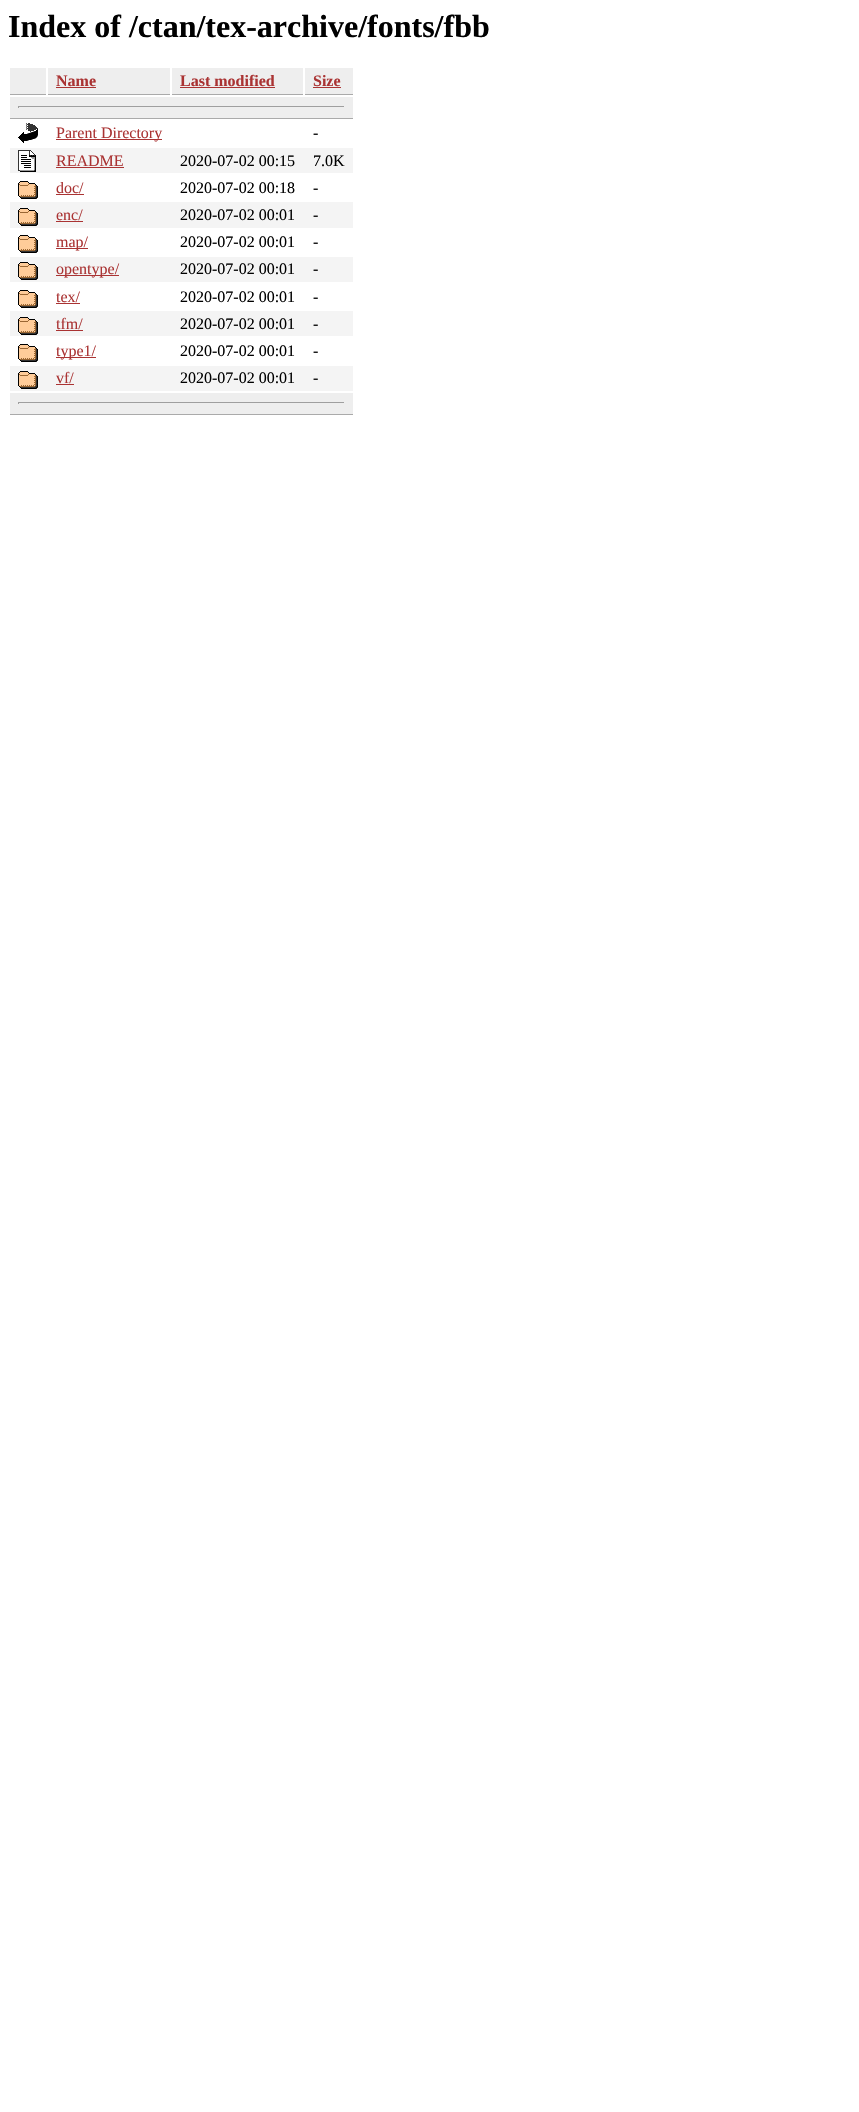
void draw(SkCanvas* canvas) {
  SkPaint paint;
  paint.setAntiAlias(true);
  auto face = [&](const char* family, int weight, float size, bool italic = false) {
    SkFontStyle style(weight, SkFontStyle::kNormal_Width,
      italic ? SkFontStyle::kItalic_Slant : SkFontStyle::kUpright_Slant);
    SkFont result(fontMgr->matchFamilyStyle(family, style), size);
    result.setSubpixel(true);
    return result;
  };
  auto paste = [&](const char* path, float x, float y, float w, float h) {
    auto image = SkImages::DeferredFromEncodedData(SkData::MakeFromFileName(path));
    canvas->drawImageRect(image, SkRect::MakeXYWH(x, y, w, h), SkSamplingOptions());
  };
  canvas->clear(0xffffffff);
  {
    const struct { float x, y, w, h; SkColor color; } items[] = {
      {10, 68, 36, 26, 0xffeeeeee},
      {10, 94, 36, 1, 0xffaaaaaa},
      {48, 68, 122, 26, 0xffeeeeee},
      {48, 94, 122, 1, 0xffaaaaaa},
      {56, 87, 40, 1, 0xffaa3333},
      {172, 68, 131, 26, 0xffeeeeee},
      {172, 94, 131, 1, 0xffaaaaaa},
      {180, 87, 95, 1, 0xffaa3333},
      {305, 68, 48, 26, 0xffeeeeee},
      {305, 94, 48, 1, 0xffaaaaaa},
      {313, 87, 28, 1, 0xffaa3333},
      {10, 97, 343, 21, 0xffeeeeee},
      {10, 118, 343, 1, 0xffaaaaaa},
      {18, 106, 327, 1, 0xff9f9f9f},
      {344, 106, 1, 2, 0xffeeeeee},
      {18, 106, 1, 2, 0xff9f9f9f},
    };
    for (auto [x, y, w, h, color] : items) {
      paint.setColor(color);
      canvas->drawRect(SkRect::MakeXYWH(x, y, w, h), paint);
    }
  }
  paste("img/1.png", 18, 123, 20, 20);
  paint.setColor(0xffaa3333);
  canvas->drawRect(SkRect::MakeXYWH(56, 139, 106, 1), paint);
  paint.setColor(0xfff4f4f4);
  canvas->drawRect(SkRect::MakeXYWH(10, 148, 343, 25), paint);
  paste("img/2.png", 18, 150, 18, 22);
  paint.setColor(0xffaa3333);
  canvas->drawRect(SkRect::MakeXYWH(56, 167, 68, 1), paint);
  paste("img/3.png", 18, 181, 20, 18);
  canvas->drawRect(SkRect::MakeXYWH(56, 194, 28, 1), paint);
  paint.setColor(0xfff4f4f4);
  canvas->drawRect(SkRect::MakeXYWH(10, 202, 343, 26), paint);
  paste("img/4.png", 18, 208, 20, 18);
  paint.setColor(0xffaa3333);
  canvas->drawRect(SkRect::MakeXYWH(56, 221, 27, 1), paint);
  paste("img/3.png", 18, 235, 20, 18);
  canvas->drawRect(SkRect::MakeXYWH(56, 248, 32, 1), paint);
  paint.setColor(0xfff4f4f4);
  canvas->drawRect(SkRect::MakeXYWH(10, 257, 343, 25), paint);
  paste("img/4.png", 18, 262, 20, 18);
  paint.setColor(0xffaa3333);
  canvas->drawRect(SkRect::MakeXYWH(56, 275, 63, 1), paint);
  paste("img/3.png", 18, 290, 20, 18);
  canvas->drawRect(SkRect::MakeXYWH(56, 303, 24, 1), paint);
  paint.setColor(0xfff4f4f4);
  canvas->drawRect(SkRect::MakeXYWH(10, 311, 343, 25), paint);
  paste("img/4.png", 18, 317, 20, 18);
  paint.setColor(0xffaa3333);
  canvas->drawRect(SkRect::MakeXYWH(56, 330, 27, 1), paint);
  paste("img/3.png", 18, 344, 20, 18);
  canvas->drawRect(SkRect::MakeXYWH(56, 357, 40, 1), paint);
  paint.setColor(0xfff4f4f4);
  canvas->drawRect(SkRect::MakeXYWH(10, 366, 343, 25), paint);
  paste("img/4.png", 18, 371, 20, 18);
  {
    const struct { float x, y, w, h; SkColor color; } items[] = {
      {56, 384, 18, 1, 0xffaa3333},
      {10, 393, 343, 21, 0xffeeeeee},
      {10, 414, 343, 1, 0xffaaaaaa},
      {18, 402, 327, 1, 0xff9f9f9f},
      {344, 402, 1, 2, 0xffeeeeee},
      {18, 402, 1, 2, 0xff9f9f9f},
    };
    for (auto [x, y, w, h, color] : items) {
      paint.setColor(color);
      canvas->drawRect(SkRect::MakeXYWH(x, y, w, h), paint);
    }
  }
  auto f0 = face("Liberation Serif", 700, 32);
  paint.setColor(0xff000000);
  canvas->drawString("Index of /ctan/tex-archive/fonts/fbb", 8, 37, f0, paint);
  auto f1 = face("Liberation Serif", 700, 16);
  paint.setColor(0xffaa3333);
  {
    const struct { const char* s; float x, y; } items[] = {
      {"Name", 56, 86},
      {"Last modified", 180, 86},
      {"Size", 313, 86},
    };
    for (auto [s, x, y] : items) {
      canvas->drawString(s, x, y, f1, paint);
    }
  }
  auto f2 = face("Liberation Serif", 400, 16);
  canvas->drawString("Parent Directory", 56, 138, f2, paint);
  paint.setColor(0xff000000);
  canvas->drawString("-", 313, 138, f2, paint);
  paint.setColor(0xffaa3333);
  canvas->drawString("README", 56, 166, f2, paint);
  paint.setColor(0xff000000);
  canvas->drawString("2020-07-02 00:15", 180, 166, f2, paint);
  canvas->drawString("7.0K", 313, 166, f2, paint);
  paint.setColor(0xffaa3333);
  canvas->drawString("doc/", 56, 193, f2, paint);
  paint.setColor(0xff000000);
  canvas->drawString("2020-07-02 00:18", 180, 193, f2, paint);
  canvas->drawString("-", 313, 193, f2, paint);
  paint.setColor(0xffaa3333);
  canvas->drawString("enc/", 56, 220, f2, paint);
  paint.setColor(0xff000000);
  canvas->drawString("2020-07-02 00:01", 180, 220, f2, paint);
  canvas->drawString("-", 313, 220, f2, paint);
  paint.setColor(0xffaa3333);
  canvas->drawString("map/", 56, 247, f2, paint);
  paint.setColor(0xff000000);
  canvas->drawString("2020-07-02 00:01", 180, 247, f2, paint);
  canvas->drawString("-", 313, 247, f2, paint);
  paint.setColor(0xffaa3333);
  canvas->drawString("opentype/", 56, 274, f2, paint);
  paint.setColor(0xff000000);
  canvas->drawString("2020-07-02 00:01", 180, 274, f2, paint);
  canvas->drawString("-", 313, 274, f2, paint);
  paint.setColor(0xffaa3333);
  canvas->drawString("tex/", 56, 302, f2, paint);
  paint.setColor(0xff000000);
  canvas->drawString("2020-07-02 00:01", 180, 302, f2, paint);
  canvas->drawString("-", 313, 302, f2, paint);
  paint.setColor(0xffaa3333);
  canvas->drawString("tfm/", 56, 329, f2, paint);
  paint.setColor(0xff000000);
  canvas->drawString("2020-07-02 00:01", 180, 329, f2, paint);
  canvas->drawString("-", 313, 329, f2, paint);
  paint.setColor(0xffaa3333);
  canvas->drawString("type1/", 56, 356, f2, paint);
  paint.setColor(0xff000000);
  canvas->drawString("2020-07-02 00:01", 180, 356, f2, paint);
  canvas->drawString("-", 313, 356, f2, paint);
  paint.setColor(0xffaa3333);
  canvas->drawString("vf/", 56, 383, f2, paint);
  paint.setColor(0xff000000);
  canvas->drawString("2020-07-02 00:01", 180, 383, f2, paint);
  canvas->drawString("-", 313, 383, f2, paint);
}
